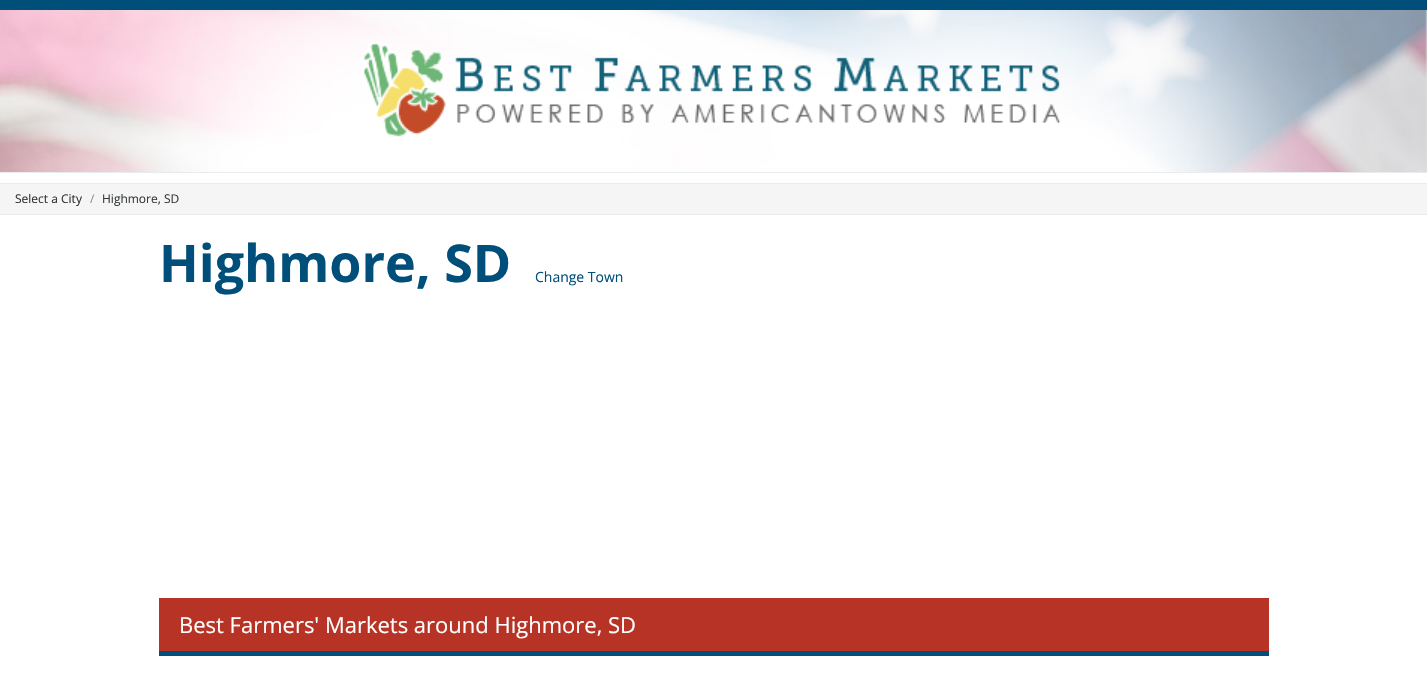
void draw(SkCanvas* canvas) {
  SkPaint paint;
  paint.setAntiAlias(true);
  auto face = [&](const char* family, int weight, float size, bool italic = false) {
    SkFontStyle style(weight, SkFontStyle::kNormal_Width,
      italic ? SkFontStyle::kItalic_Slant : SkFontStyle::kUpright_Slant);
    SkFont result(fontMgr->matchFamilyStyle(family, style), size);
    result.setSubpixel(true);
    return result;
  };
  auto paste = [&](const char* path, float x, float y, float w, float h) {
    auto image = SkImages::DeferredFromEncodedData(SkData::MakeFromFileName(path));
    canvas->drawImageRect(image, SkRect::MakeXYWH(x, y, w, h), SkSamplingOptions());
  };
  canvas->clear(0xffffffff);
  paint.setColor(0xff004f7b);
  canvas->drawRect(SkRect::MakeXYWH(0, 0, 1427, 10), paint);
  paste("img/1.png", 0, 10, 1427, 162);
  paint.setColor(0xffe9ecef);
  canvas->drawRect(SkRect::MakeXYWH(0, 172, 1427, 1), paint);
  paste("img/2.png", 364, 41, 697, 96);
  {
    const struct { float x, y, w, h; SkColor color; } items[] = {
      {0, 184, 1427, 30, 0xfff5f5f5},
      {0, 183, 1427, 1, 0xffe9ecef},
      {0, 214, 1427, 1, 0xffe9ecef},
      {159, 598, 1110, 53, 0xffb63325},
      {159, 651, 1110, 5, 0xff004f7b},
    };
    for (auto [x, y, w, h, color] : items) {
      paint.setColor(color);
      canvas->drawRect(SkRect::MakeXYWH(x, y, w, h), paint);
    }
  }
  auto f0 = face("Open Sans", 400, 12);
  paint.setColor(0xff333333);
  canvas->drawString("Select a City", 15, 203, f0, paint);
  paint.setColor(0xff868e96);
  canvas->drawString("/", 90, 203, f0, paint);
  paint.setColor(0xff373a3c);
  canvas->drawString("Highmore, SD", 102, 203, f0, paint);
  auto f1 = face("Open Sans", 700, 52);
  paint.setColor(0xff004f7b);
  canvas->drawString("Highmore, SD", 159, 282, f1, paint);
  auto f2 = face("Open Sans", 400, 14);
  canvas->drawString("Change Town", 535, 282, f2, paint);
  auto f3 = face("Open Sans", 400, 22);
  paint.setColor(0xffffffff);
  canvas->drawString("Best Farmers' Markets around Highmore, SD", 179, 633, f3, paint);
}
